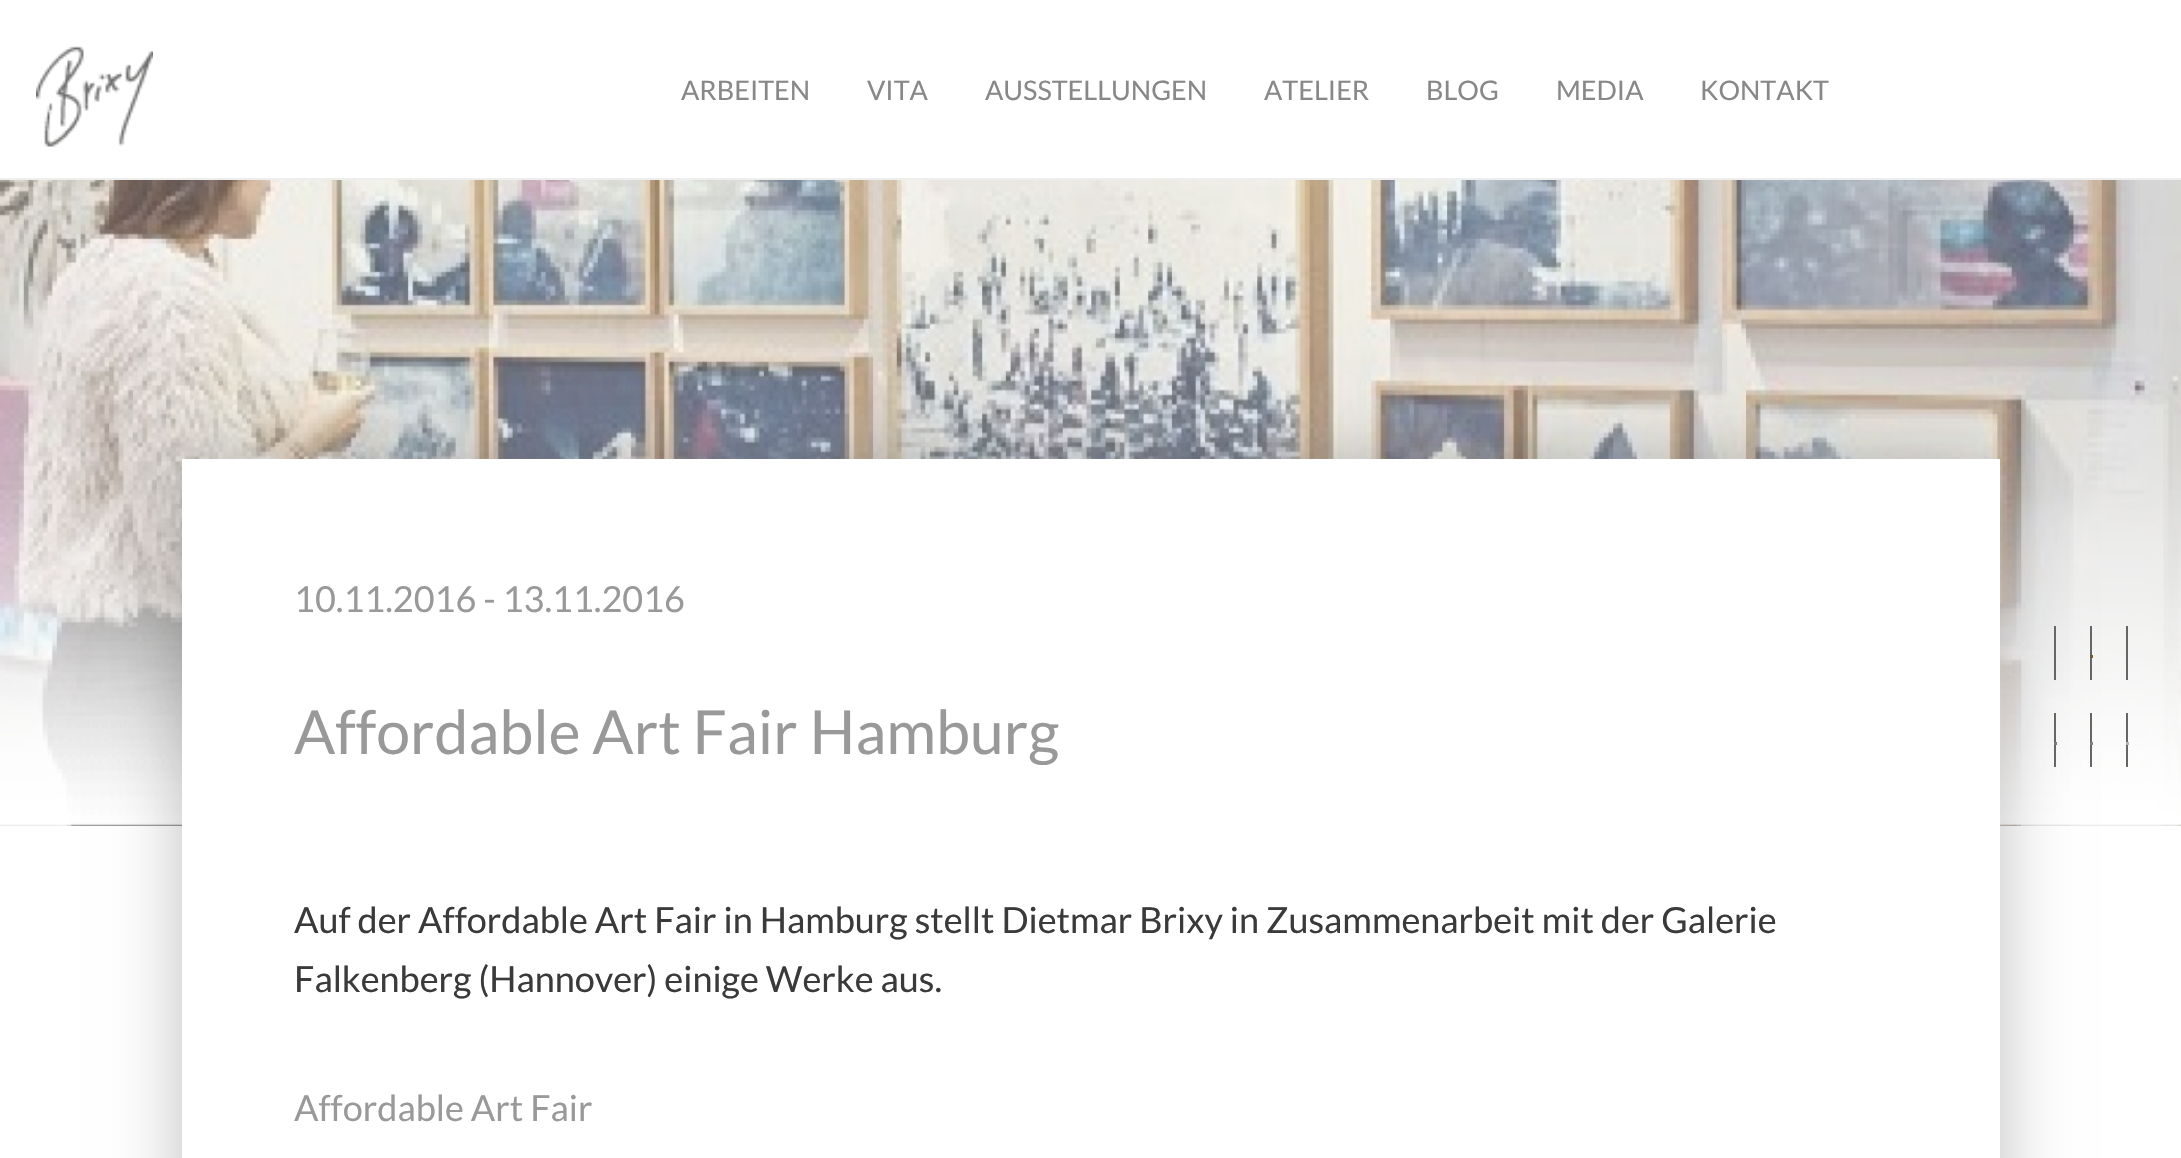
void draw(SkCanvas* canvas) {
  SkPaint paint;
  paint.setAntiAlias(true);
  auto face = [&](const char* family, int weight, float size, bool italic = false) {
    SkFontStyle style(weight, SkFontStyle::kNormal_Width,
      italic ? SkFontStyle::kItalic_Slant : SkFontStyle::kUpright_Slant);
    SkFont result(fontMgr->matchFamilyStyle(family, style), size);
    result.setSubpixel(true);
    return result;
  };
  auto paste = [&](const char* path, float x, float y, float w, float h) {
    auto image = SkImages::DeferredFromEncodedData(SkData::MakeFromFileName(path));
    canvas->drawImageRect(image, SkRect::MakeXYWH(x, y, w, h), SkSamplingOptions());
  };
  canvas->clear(0xffffffff);
  paint.setColor(0xffeeeeee);
  canvas->drawRect(SkRect::MakeXYWH(0, 178, 2181, 2), paint);
  paste("img/1.png", 36, 46, 117, 101);
  paste("img/2.png", 0, 180, 2181, 646);
  paste("img/3.png", 0, 180, 2181, 646);
  paint.setColor(0x40000000);
  paint.setMaskFilter(SkMaskFilter::MakeBlur(kNormal_SkBlurStyle, 34));
  canvas->drawRect(SkRect::MakeXYWH(182, 459, 1818, 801), paint);
  paint.setMaskFilter(nullptr);
  {
    const struct { float x, y, w, h; SkColor color; } items[] = {
      {182, 459, 1818, 699, 0xffffffff},
      {2054, 626, 2, 54, 0xff666666},
      {2090, 626, 2, 54, 0xff666666},
      {2090, 655, 3, 3, 0xff755b30},
      {2126, 626, 2, 54, 0xff666666},
      {2054, 713, 2, 54, 0xff666666},
      {2054, 742, 3, 3, 0xff757b7c},
      {2090, 713, 2, 54, 0xff666666},
      {2090, 742, 3, 3, 0xff837e75},
      {2126, 713, 2, 54, 0xff666666},
      {2126, 742, 3, 3, 0xffb6b4ae},
    };
    for (auto [x, y, w, h, color] : items) {
      paint.setColor(color);
      canvas->drawRect(SkRect::MakeXYWH(x, y, w, h), paint);
    }
  }
  auto f0 = face("Lato", 400, 27);
  paint.setColor(0xff888888);
  {
    const struct { const char* s; float x, y; } items[] = {
      {"ARBEITEN", 681, 100},
      {"VITA", 867, 100},
      {"AUSSTELLUNGEN", 985, 100},
      {"ATELIER", 1264, 100},
      {"BLOG", 1426, 100},
      {"MEDIA", 1556, 100},
      {"KONTAKT", 1700, 100},
    };
    for (auto [s, x, y] : items) {
      canvas->drawString(s, x, y, f0, paint);
    }
  }
  auto f1 = face("Lato", 400, 36);
  paint.setColor(0xff999999);
  canvas->drawString("10.11.2016 - 13.11.2016", 294, 612, f1, paint);
  auto f2 = face("Lato", 400, 60.75f);
  canvas->drawString("Affordable Art Fair Hamburg", 294, 754, f2, paint);
  paint.setColor(0xff3a3a3a);
  canvas->drawString("Auf der Affordable Art Fair in Hamburg stellt Dietmar Brixy in Zusammenarbeit mit der Galerie", 294, 933, f1, paint);
  canvas->drawString("Falkenberg (Hannover) einige Werke aus.", 294, 992, f1, paint);
  paint.setColor(0xff999999);
  canvas->drawString("Affordable Art Fair", 294, 1121, f1, paint);
}
